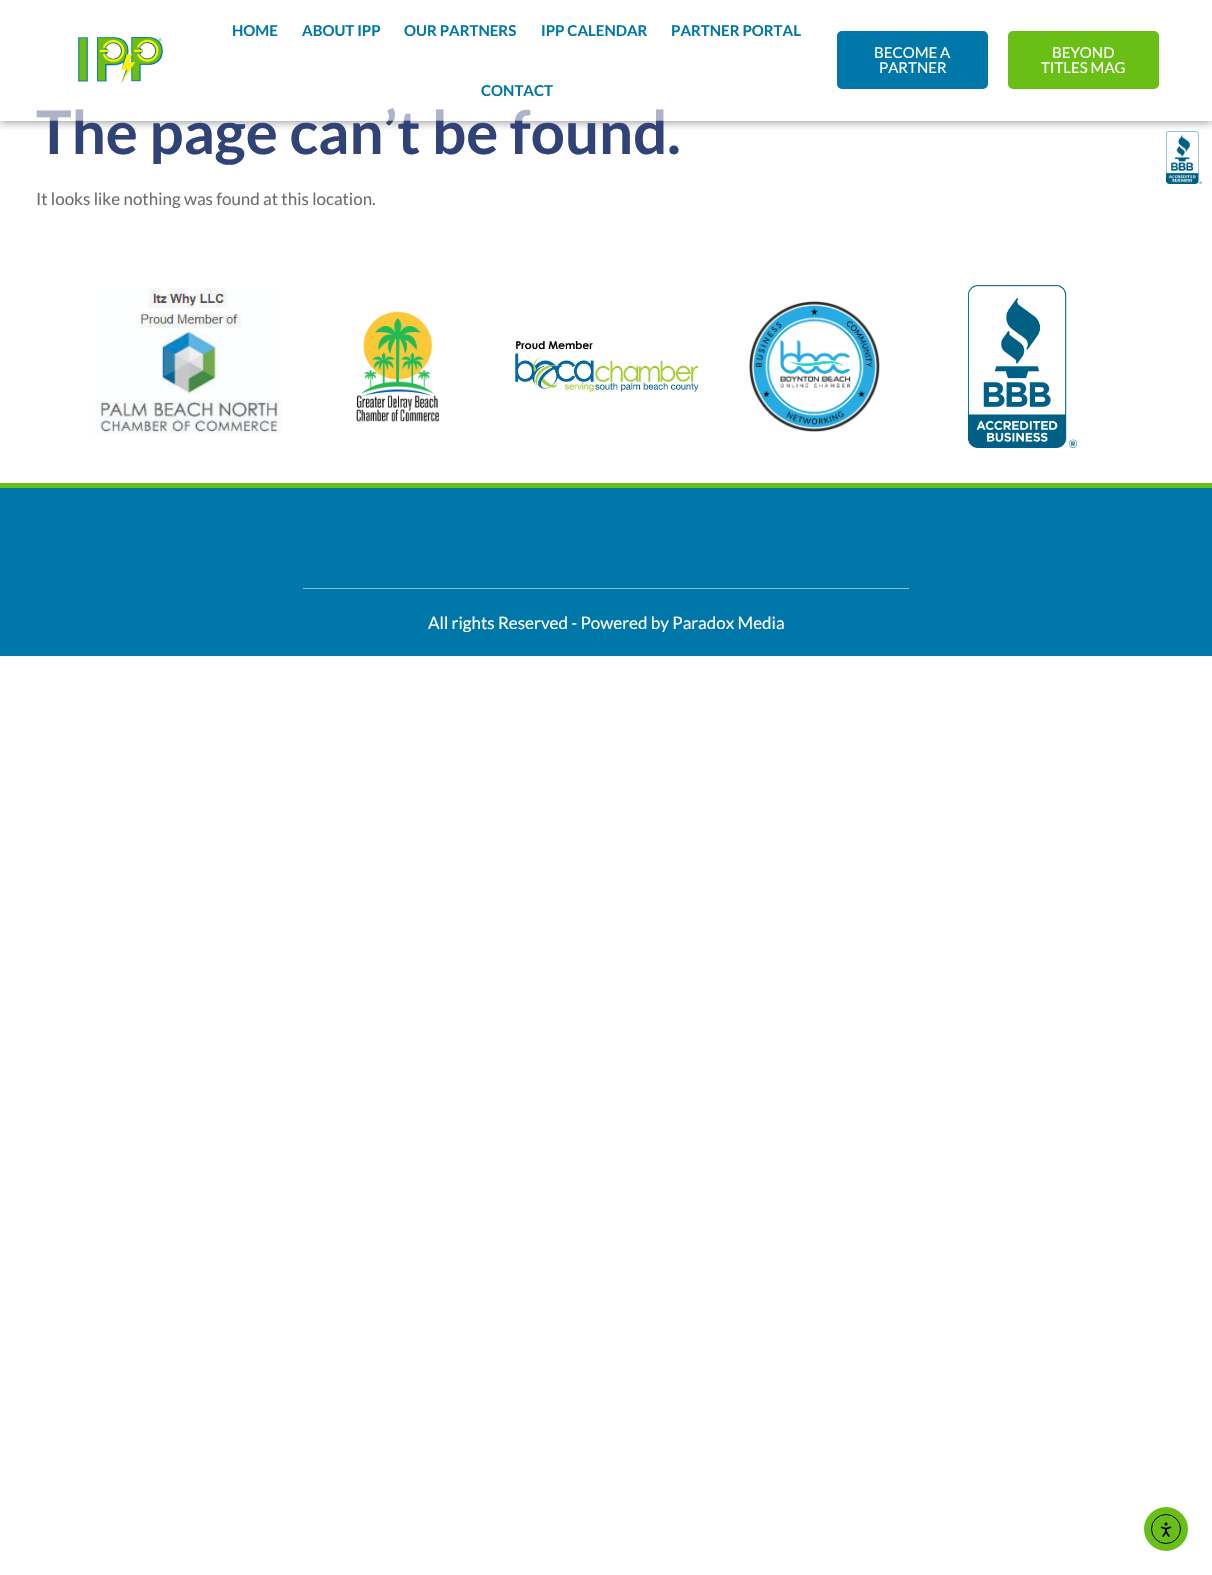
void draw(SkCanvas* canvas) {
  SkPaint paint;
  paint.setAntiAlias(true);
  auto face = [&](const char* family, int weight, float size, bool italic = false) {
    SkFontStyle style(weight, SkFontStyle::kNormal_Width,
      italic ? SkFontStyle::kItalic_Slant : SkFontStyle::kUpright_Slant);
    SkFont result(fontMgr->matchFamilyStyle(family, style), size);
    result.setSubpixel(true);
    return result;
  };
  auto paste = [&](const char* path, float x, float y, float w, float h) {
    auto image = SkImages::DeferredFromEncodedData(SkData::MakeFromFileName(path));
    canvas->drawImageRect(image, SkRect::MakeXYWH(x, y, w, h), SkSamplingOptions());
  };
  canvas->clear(0xffffffff);
  paste("img/2.png", 1166, 131, 36, 53);
  canvas->save();
  canvas->clipRect(SkRect::MakeXYWH(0, 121, 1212, 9));
  paint.setColor(0x80000000);
  paint.setMaskFilter(SkMaskFilter::MakeBlur(kNormal_SkBlurStyle, 5));
  canvas->drawRect(SkRect::MakeXYWH(0, 0, 1212, 121), paint);
  paint.setMaskFilter(nullptr);
  canvas->restore();
  paste("img/1.png", 78, 37, 86, 46);
  paint.setColor(0xff0077a9);
  canvas->drawRoundRect(SkRect::MakeXYWH(838, 32, 149, 56), 4, 4, paint);
  paint.setStroke(true);
  paint.setStrokeWidth(2);
  canvas->drawRoundRect(SkRect::MakeXYWH(838, 32, 149, 56), 4, 4, paint);
  paint.setStroke(false);
  paint.setColor(0xff69bf16);
  canvas->drawRoundRect(SkRect::MakeXYWH(1009, 32, 149, 56), 4, 4, paint);
  paint.setStroke(true);
  canvas->drawRoundRect(SkRect::MakeXYWH(1009, 32, 149, 56), 4, 4, paint);
  paste("img/3.png", 95, 288, 186, 146);
  paste("img/4.png", 356, 311, 83, 111);
  paste("img/5.png", 512, 341, 188, 53);
  paste("img/6.png", 749, 301, 131, 131);
  paste("img/7.png", 968, 285, 109, 163);
  paint.setStroke(false);
  {
    const struct { float x, y, w, h; SkColor color; } items[] = {
      {0, 488, 1212, 168, 0xff0077a9},
      {0, 483, 1212, 5, 0xff69bf16},
      {303, 588, 606, 1, 0xff85bed6},
    };
    for (auto [x, y, w, h, color] : items) {
      paint.setColor(color);
      canvas->drawRect(SkRect::MakeXYWH(x, y, w, h), paint);
    }
  }
  paint.setColor(0xff6abf17);
  canvas->drawCircle(1166, 1529, 22, paint);
  paint.setStroke(true);
  paint.setStrokeWidth(1);
  paint.setColor(0xff000000);
  canvas->drawCircle(1166, 1529, 14.5f, paint);
  paste("img/8.png", 1160, 1522, 12, 15);
  auto f0 = face("Lato", 700, 15);
  paint.setStroke(false);
  paint.setColor(0xff0077a9);
  {
    const struct { const char* s; float x, y; } items[] = {
      {"HOME", 232, 36},
      {"ABOUT IPP", 302, 36},
      {"OUR PARTNERS", 404, 36},
      {"IPP CALENDAR", 541, 36},
      {"PARTNER PORTAL", 671, 36},
      {"CONTACT", 481, 96},
    };
    for (auto [s, x, y] : items) {
      canvas->drawString(s, x, y, f0, paint);
    }
  }
  auto f1 = face("Lato", 400, 15);
  paint.setColor(0xffffffff);
  {
    const struct { const char* s; float x, y; } items[] = {
      {"BECOME A", 874, 58},
      {"PARTNER", 879, 73},
      {"BEYOND", 1052, 58},
      {"TITLES MAG", 1041, 73},
    };
    for (auto [s, x, y] : items) {
      canvas->drawString(s, x, y, f1, paint);
    }
  }
  auto f2 = face("Lato", 700, 60);
  paint.setColor(0xff314376);
  canvas->drawString("The page can’t be found.", 36, 154, f2, paint);
  paint.setColor(0x99ffffff);
  canvas->drawRect(SkRect::MakeXYWH(36, 108, 628, 12), paint);
  paint.setColor(0x70ffffff);
  canvas->drawRect(SkRect::MakeXYWH(49, 120, 615, 1), paint);
  auto f3 = face("Lato", 400, 17);
  paint.setColor(0xff6e6e6e);
  canvas->drawString("It looks like nothing was found at this location.", 36, 205, f3, paint);
  paint.setColor(0xffffffff);
  canvas->drawString("All rights Reserved - Powered by Paradox Media", 428, 629, f3, paint);
}
